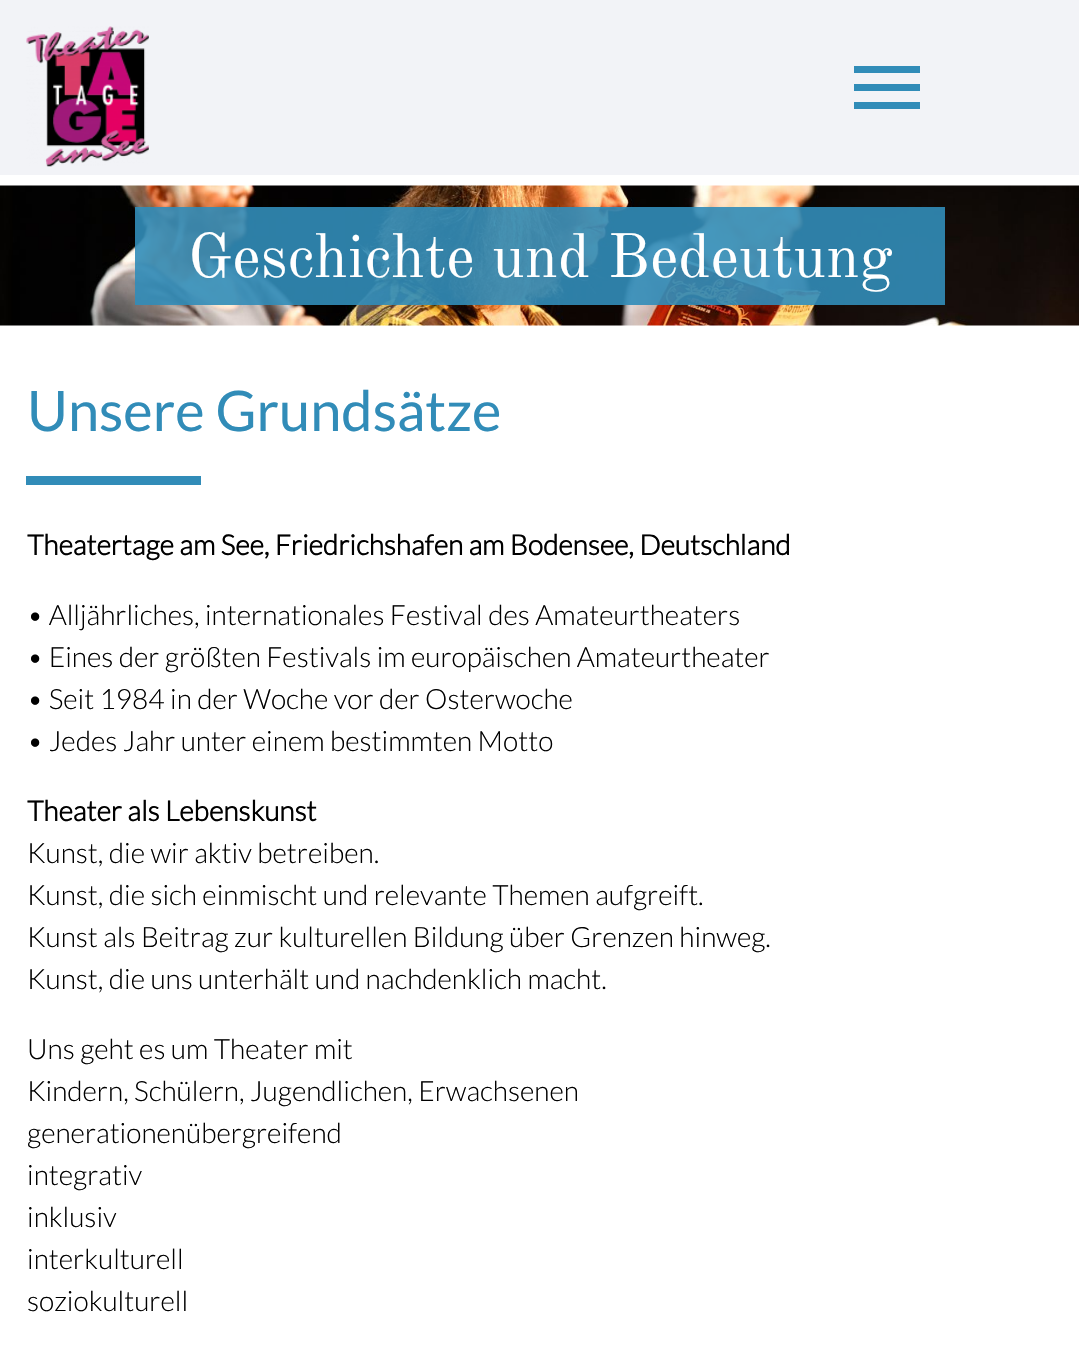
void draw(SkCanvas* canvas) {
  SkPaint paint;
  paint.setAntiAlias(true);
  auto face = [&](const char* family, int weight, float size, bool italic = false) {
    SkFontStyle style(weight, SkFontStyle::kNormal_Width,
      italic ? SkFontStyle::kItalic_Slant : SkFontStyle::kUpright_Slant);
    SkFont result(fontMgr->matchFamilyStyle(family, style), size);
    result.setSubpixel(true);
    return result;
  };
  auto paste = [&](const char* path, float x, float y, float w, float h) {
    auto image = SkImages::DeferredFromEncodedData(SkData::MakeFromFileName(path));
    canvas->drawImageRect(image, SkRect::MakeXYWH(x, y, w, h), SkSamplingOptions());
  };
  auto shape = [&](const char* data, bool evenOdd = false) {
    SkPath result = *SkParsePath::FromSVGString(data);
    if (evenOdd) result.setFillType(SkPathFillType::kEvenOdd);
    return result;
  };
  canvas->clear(0xffffffff);
  paint.setColor(0xfff2f3f7);
  canvas->drawRect(SkRect::MakeXYWH(0, 0, 1079, 175), paint);
  paste("img/1.png", 26, 26, 123, 141);
  paint.setColor(0xff318cb8);
  canvas->drawPath(shape("M854 66H920V73H854ZM854 91V84H920V91ZM854 109V102H920V109Z"), paint);
  paste("img/2.png", 0, 185, 1079, 141);
  paint.setColor(0xe6318cb8);
  canvas->drawRect(SkRect::MakeXYWH(135, 207, 810, 98), paint);
  paint.setColor(0xff318cb8);
  canvas->drawRect(SkRect::MakeXYWH(26, 476, 175, 9), paint);
  auto f0 = face("Old Standard TT", 400, 61.6f);
  paint.setColor(0xffffffff);
  canvas->drawString("Geschichte und Bedeutung", 188, 277, f0, paint);
  auto f1 = face("Lato", 400, 56);
  paint.setColor(0xff318cb8);
  canvas->drawString("Unsere Grundsätze", 27, 431, f1, paint);
  auto f2 = face("Lato", 700, 28);
  paint.setColor(0xff000000);
  canvas->drawString("Theatertage am See, Friedrichshafen am Bodensee, Deutschland", 27, 555, f2, paint);
  auto f3 = face("Lato", 300, 28);
  {
    const struct { const char* s; float x, y; } items[] = {
      {"• Alljährliches, internationales Festival des Amateurtheaters", 27, 625},
      {"• Eines der größten Festivals im europäischen Amateurtheater", 27, 667},
      {"• Seit 1984 in der Woche vor der Osterwoche", 27, 709},
      {"• Jedes Jahr unter einem bestimmten Motto", 27, 751},
    };
    for (auto [s, x, y] : items) {
      canvas->drawString(s, x, y, f3, paint);
    }
  }
  canvas->drawString("Theater als Lebenskunst", 27, 821, f2, paint);
  {
    const struct { const char* s; float x, y; } items[] = {
      {"Kunst, die wir aktiv betreiben.", 27, 863},
      {"Kunst, die sich einmischt und relevante Themen aufgreift.", 27, 905},
      {"Kunst als Beitrag zur kulturellen Bildung über Grenzen hinweg.", 27, 947},
      {"Kunst, die uns unterhält und nachdenklich macht.", 27, 989},
      {"Uns geht es um Theater mit", 27, 1059},
      {"Kindern, Schülern, Jugendlichen, Erwachsenen", 27, 1101},
      {"generationenübergreifend", 27, 1143},
      {"integrativ", 27, 1185},
      {"inklusiv", 27, 1227},
      {"interkulturell", 27, 1269},
      {"soziokulturell", 27, 1311},
    };
    for (auto [s, x, y] : items) {
      canvas->drawString(s, x, y, f3, paint);
    }
  }
}
